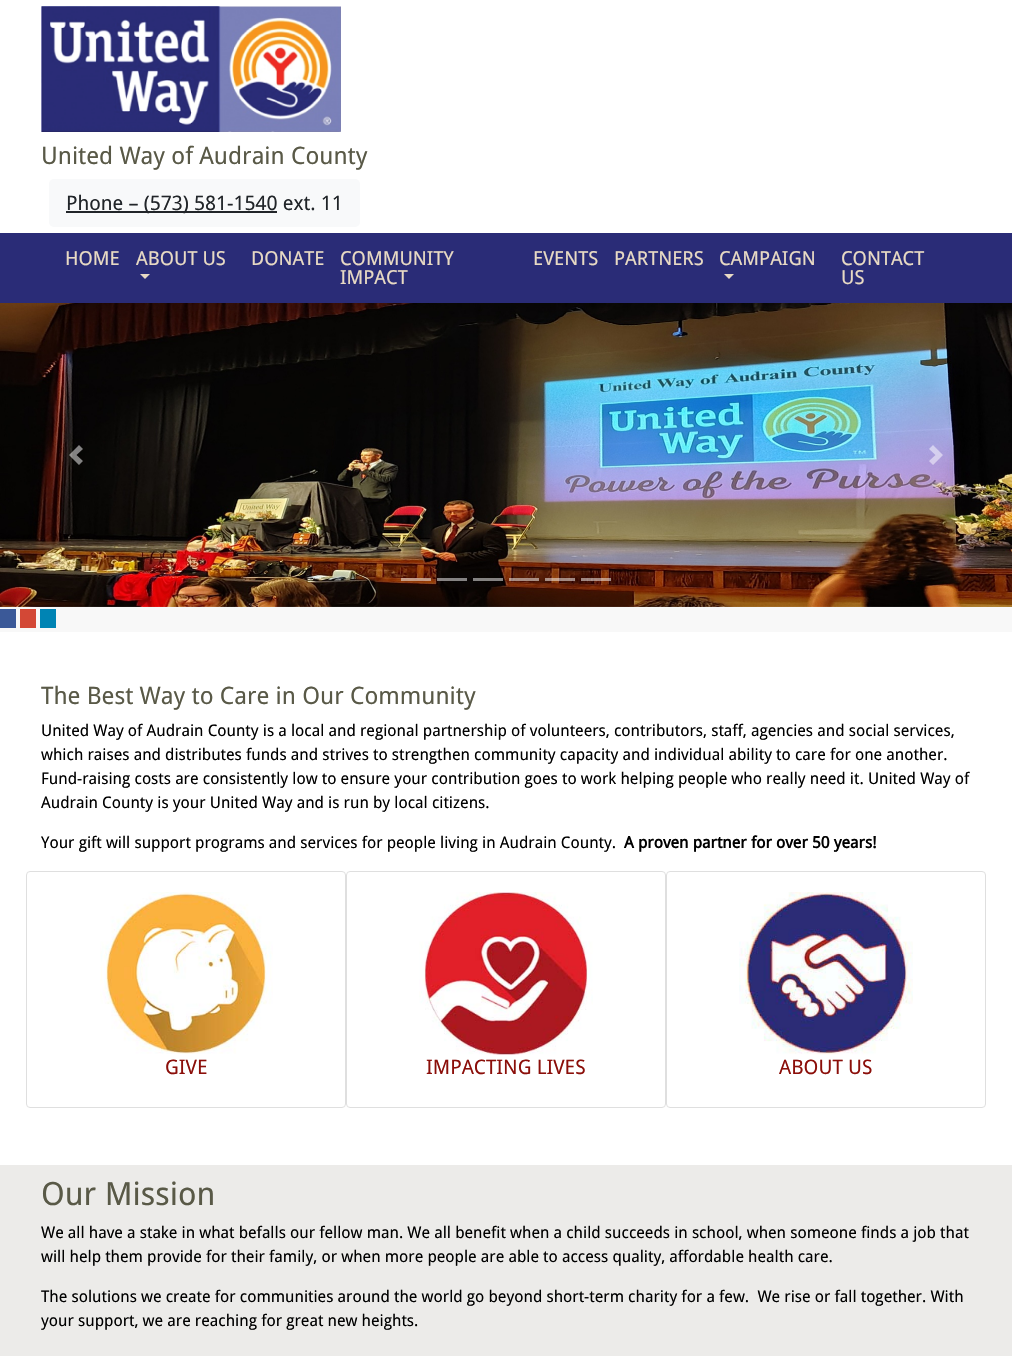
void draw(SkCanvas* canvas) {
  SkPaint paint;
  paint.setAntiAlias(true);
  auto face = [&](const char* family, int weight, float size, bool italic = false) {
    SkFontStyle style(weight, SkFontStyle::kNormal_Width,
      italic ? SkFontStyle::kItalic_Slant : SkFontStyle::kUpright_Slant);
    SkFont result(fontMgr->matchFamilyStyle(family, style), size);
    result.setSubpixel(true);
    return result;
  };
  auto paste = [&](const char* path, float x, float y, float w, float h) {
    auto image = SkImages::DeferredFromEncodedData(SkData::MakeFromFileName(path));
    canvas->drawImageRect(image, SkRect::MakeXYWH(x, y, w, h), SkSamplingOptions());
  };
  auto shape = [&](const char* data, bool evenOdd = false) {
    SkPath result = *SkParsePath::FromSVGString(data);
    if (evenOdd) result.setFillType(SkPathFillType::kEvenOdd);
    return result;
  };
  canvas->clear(0xffffffff);
  paint.setColor(0xff2a2c77);
  canvas->drawRect(SkRect::MakeXYWH(0, 233, 1012, 70), paint);
  paste("img/1.png", 41, 6, 300, 126);
  paint.setColor(0xfff8f9fa);
  canvas->drawRoundRect(SkRect::MakeXYWH(49, 179, 311, 48), 5, 5, paint);
  paint.setColor(0xff212529);
  canvas->drawRect(SkRect::MakeXYWH(66, 211, 211, 2), paint);
  paint.setColor(0xffe8dac4);
  canvas->drawPath(shape("M140 274H150L145 279Z"), paint);
  canvas->drawPath(shape("M724 274H734L729 279Z"), paint);
  paint.setColor(0xfff8f8f8);
  canvas->drawRect(SkRect::MakeXYWH(0, 606, 1012, 26), paint);
  paste("img/2.png", 0, 303, 1012, 304);
  paint.setColor(0x80ffffff);
  canvas->drawPath(shape("M79 445L69 455L79 465L83 461L76.5 455L83 449Z"), paint);
  canvas->drawPath(shape("M933 445L929 449L935.5 455L929 461L933 465L943 455Z"), paint);
  {
    const struct { float x, y, w, h; SkColor color; } items[] = {
      {401, 578, 30, 3, 0x80ffffff},
      {437, 578, 30, 3, 0x80ffffff},
      {473, 578, 30, 3, 0x80ffffff},
      {509, 578, 30, 3, 0x80ffffff},
      {545, 578, 30, 3, 0x80ffffff},
      {581, 578, 30, 3, 0x80ffffff},
      {0, 609, 16, 19, 0xff3b5998},
      {20, 609, 16, 19, 0xffd34836},
      {40, 609, 16, 19, 0xff0084b4},
    };
    for (auto [x, y, w, h, color] : items) {
      paint.setColor(color);
      canvas->drawRect(SkRect::MakeXYWH(x, y, w, h), paint);
    }
  }
  paint.setStroke(true);
  paint.setStrokeWidth(1);
  paint.setColor(0xffdfdfdf);
  canvas->drawRoundRect(SkRect::MakeXYWH(26.5f, 871.5f, 319, 236), 3.5f, 3.5f, paint);
  paste("img/3.png", 100, 892, 173, 162);
  canvas->drawRoundRect(SkRect::MakeXYWH(346.5f, 871.5f, 319, 236), 3.5f, 3.5f, paint);
  paste("img/4.png", 419, 892, 174, 163);
  canvas->drawRoundRect(SkRect::MakeXYWH(666.5f, 871.5f, 319, 236), 3.5f, 3.5f, paint);
  paste("img/5.png", 739, 892, 174, 163);
  paint.setStroke(false);
  paint.setColor(0xffecebe9);
  canvas->drawRect(SkRect::MakeXYWH(0, 1165, 1012, 191), paint);
  auto f0 = face("Droid Sans", 400, 24);
  paint.setColor(0xff595947);
  canvas->drawString("United Way of Audrain County", 41, 164, f0, paint);
  auto f1 = face("Droid Sans", 400, 20);
  paint.setColor(0xff212529);
  canvas->drawString("Phone – (573) 581-1540 ext. 11", 66, 210, f1, paint);
  auto f2 = face("Droid Sans", 400, 19.25f);
  paint.setColor(0xffe8dac4);
  {
    const struct { const char* s; float x, y; } items[] = {
      {"HOME", 65, 265},
      {"ABOUT US", 136, 265},
      {"DONATE", 251, 265},
      {"COMMUNITY", 340, 265},
      {"IMPACT", 340, 284},
      {"EVENTS", 533, 265},
      {"PARTNERS", 614, 265},
      {"CAMPAIGN", 719, 265},
      {"CONTACT", 841, 265},
      {"US", 841, 284},
    };
    for (auto [s, x, y] : items) {
      canvas->drawString(s, x, y, f2, paint);
    }
  }
  paint.setColor(0xff595947);
  canvas->drawString("The Best Way to Care in Our Community", 41, 704, f0, paint);
  auto f3 = face("Droid Sans", 400, 16);
  paint.setColor(0xff000000);
  {
    const struct { const char* s; float x, y; } items[] = {
      {"United Way of Audrain County is a local and regional partnership of volunteers, contributors, staff, agencies and social services,", 41, 736},
      {"which raises and distributes funds and strives to strengthen community capacity and individual ability to care for one another.", 41, 760},
      {"Fund-raising costs are consistently low to ensure your contribution goes to work helping people who really need it. United Way of", 41, 784},
      {"Audrain County is your United Way and is run by local citizens.", 41, 808},
      {"Your gift will support programs and services for people living in Audrain County.", 41, 848},
    };
    for (auto [s, x, y] : items) {
      canvas->drawString(s, x, y, f3, paint);
    }
  }
  auto f4 = face("Droid Sans", 700, 16);
  canvas->drawString("A proven partner for over 50 years!", 624, 848, f4, paint);
  paint.setColor(0xff8b0f0a);
  {
    const struct { const char* s; float x, y; } items[] = {
      {"GIVE", 165, 1074},
      {"IMPACTING LIVES", 426, 1074},
      {"ABOUT US", 779, 1074},
    };
    for (auto [s, x, y] : items) {
      canvas->drawString(s, x, y, f1, paint);
    }
  }
  auto f5 = face("Droid Sans", 400, 32);
  paint.setColor(0xff595947);
  canvas->drawString("Our Mission", 41, 1205, f5, paint);
  paint.setColor(0xff000000);
  {
    const struct { const char* s; float x, y; } items[] = {
      {"We all have a stake in what befalls our fellow man. We all benefit when a child succeeds in school, when someone finds a job that", 41, 1238},
      {"will help them provide for their family, or when more people are able to access quality, affordable health care.", 41, 1262},
      {"The solutions we create for communities around the world go beyond short-term charity for a few.  We rise or fall together. With", 41, 1302},
      {"your support, we are reaching for great new heights.", 41, 1326},
    };
    for (auto [s, x, y] : items) {
      canvas->drawString(s, x, y, f3, paint);
    }
  }
}
